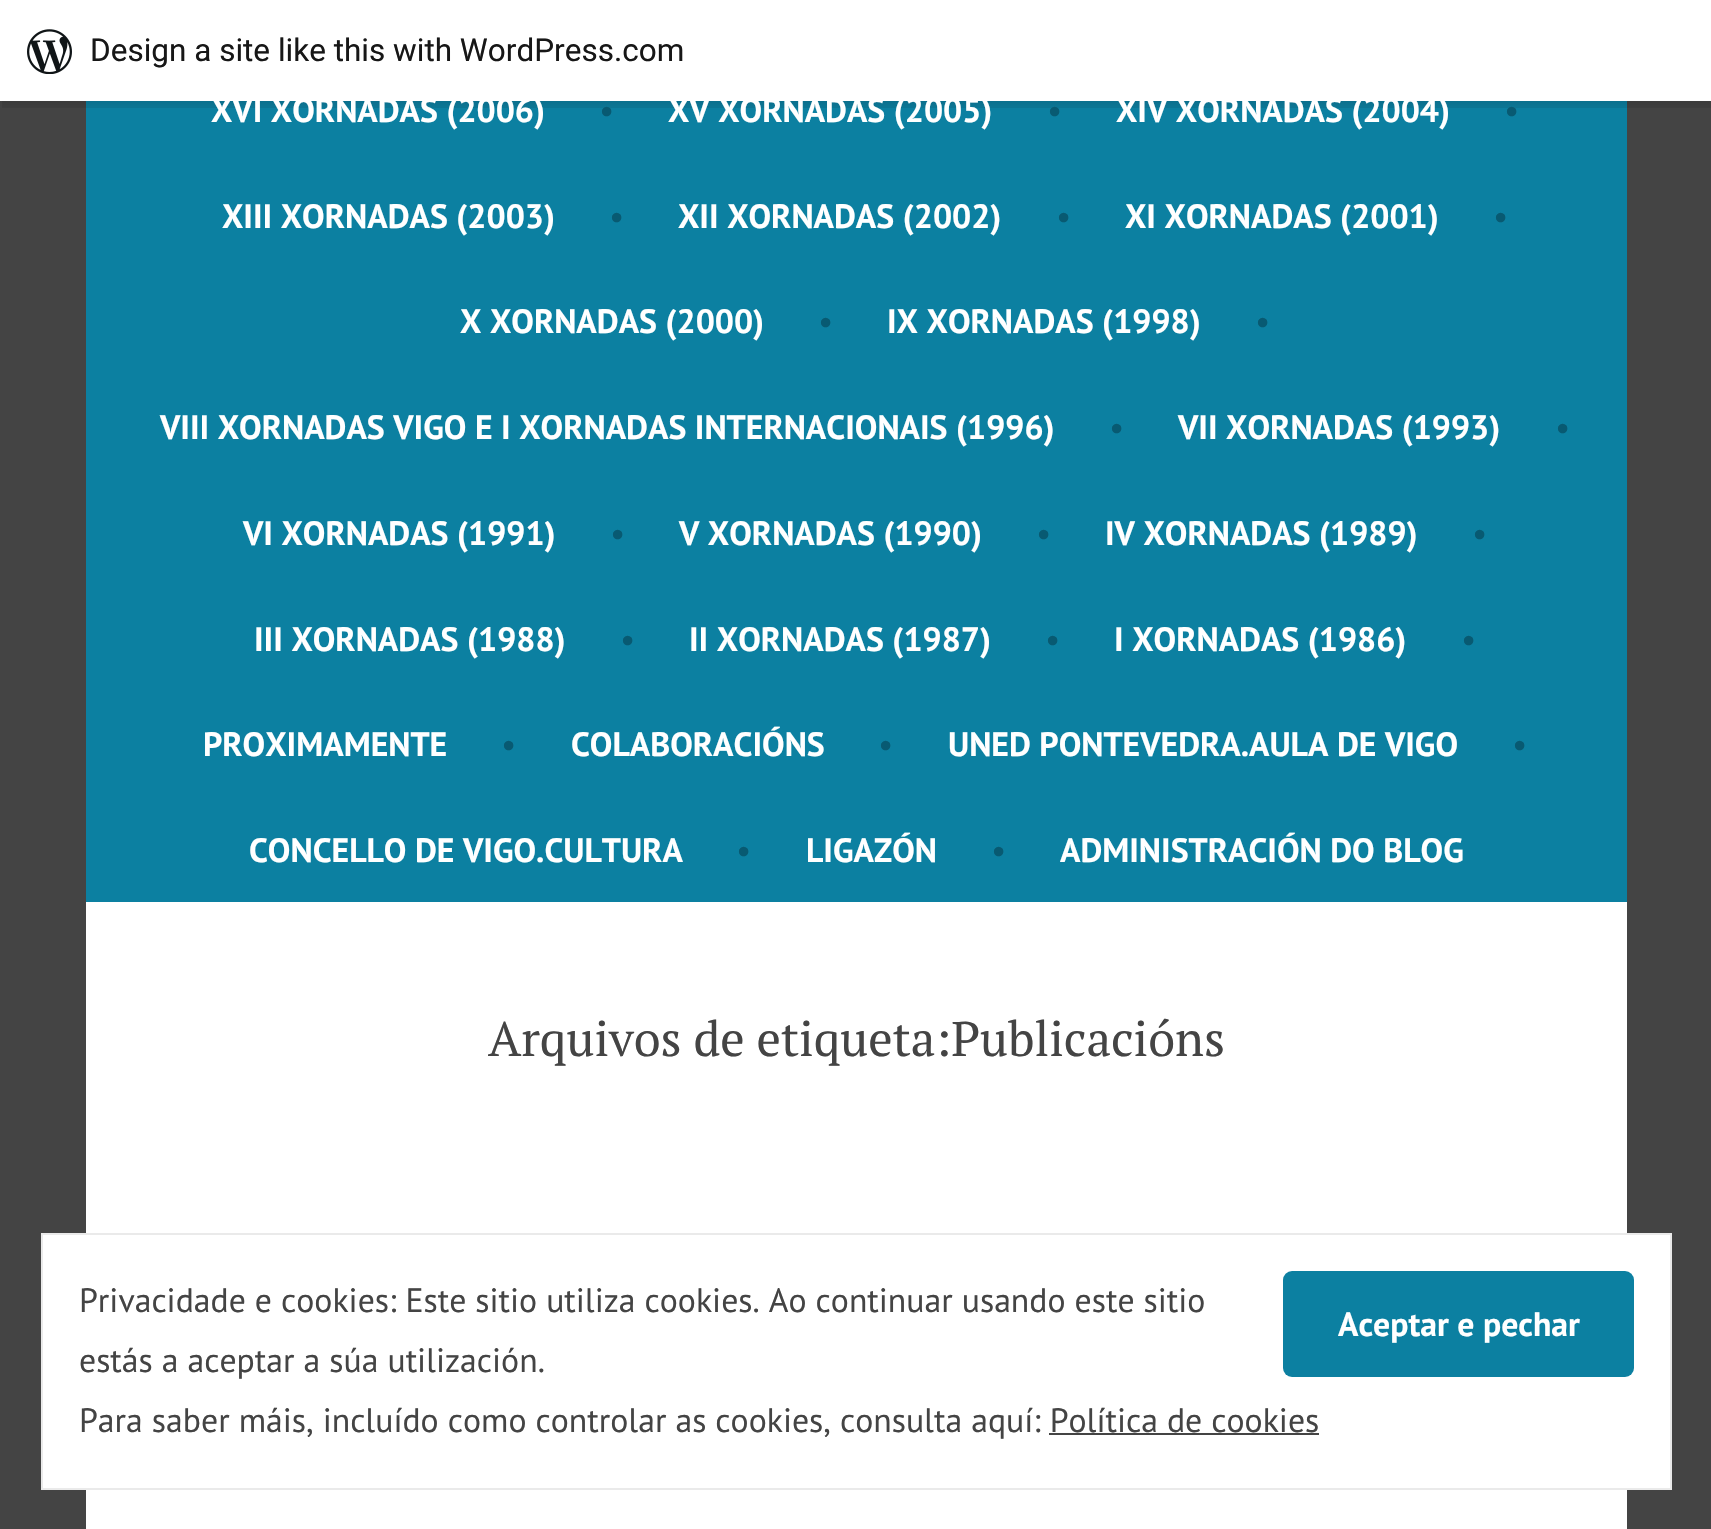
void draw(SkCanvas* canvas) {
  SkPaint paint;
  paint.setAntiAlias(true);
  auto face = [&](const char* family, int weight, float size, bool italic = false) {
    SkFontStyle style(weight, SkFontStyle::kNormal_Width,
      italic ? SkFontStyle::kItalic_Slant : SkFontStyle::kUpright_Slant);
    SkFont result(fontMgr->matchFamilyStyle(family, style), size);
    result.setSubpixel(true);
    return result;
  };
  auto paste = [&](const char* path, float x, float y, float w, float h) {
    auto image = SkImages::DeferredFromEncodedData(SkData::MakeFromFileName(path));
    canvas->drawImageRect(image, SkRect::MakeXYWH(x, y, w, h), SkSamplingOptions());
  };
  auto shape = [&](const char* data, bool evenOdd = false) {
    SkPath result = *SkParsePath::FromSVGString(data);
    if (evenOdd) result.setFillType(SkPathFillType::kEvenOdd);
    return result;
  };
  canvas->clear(0xff444444);
  paint.setColor(0xff0c80a1);
  canvas->drawRect(SkRect::MakeXYWH(86, 101, 1541, 801), paint);
  paint.setColor(0x0d000000);
  paint.setMaskFilter(SkMaskFilter::MakeBlur(kNormal_SkBlurStyle, 2));
  canvas->drawRect(SkRect::MakeXYWH(0, 2, 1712, 102), paint);
  paint.setMaskFilter(nullptr);
  paint.setColor(0x14000000);
  canvas->drawPath(shape("M2 101V108H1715V7H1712V101Z"), paint);
  paint.setColor(0xffffffff);
  canvas->drawRect(SkRect::MakeXYWH(0, 0, 1711, 101), paint);
  paste("img/1.png", 27, 29, 45, 45);
  canvas->drawRect(SkRect::MakeXYWH(86, 902, 1541, 627), paint);
  canvas->drawRect(SkRect::MakeXYWH(42, 1234, 1629, 255), paint);
  paint.setStroke(true);
  paint.setStrokeWidth(2);
  paint.setColor(0xffeaeaea);
  canvas->drawRect(SkRect::MakeXYWH(42, 1234, 1629, 255), paint);
  paint.setStroke(false);
  paint.setColor(0xff0c80a1);
  canvas->drawRoundRect(SkRect::MakeXYWH(1283, 1271, 351, 106), 9, 9, paint);
  paint.setColor(0xff444444);
  canvas->drawRect(SkRect::MakeXYWH(1049, 1433, 270, 2), paint);
  auto f0 = face("Roboto", 400, 31.5f);
  paint.setColor(0xff171717);
  canvas->drawString("Design a site like this with WordPress.com", 90, 61, f0, paint);
  auto f1 = face("PT Sans", 700, 33.75f);
  paint.setColor(0xffffffff);
  canvas->drawString("XVI XORNADAS (2006)", 211, 122, f1, paint);
  auto f2 = face("PT Sans", 400, 33.75f);
  paint.setColor(0xff085a72);
  canvas->drawString("•", 599, 122, f2, paint);
  paint.setColor(0xffffffff);
  canvas->drawString("XV XORNADAS (2005)", 668, 122, f1, paint);
  paint.setColor(0xff085a72);
  canvas->drawString("•", 1047, 122, f2, paint);
  paint.setColor(0xffffffff);
  canvas->drawString("XIV XORNADAS (2004)", 1116, 122, f1, paint);
  paint.setColor(0xff085a72);
  canvas->drawString("•", 1504, 122, f2, paint);
  paint.setColor(0xffffffff);
  canvas->drawString("XIII XORNADAS (2003)", 222, 228, f1, paint);
  paint.setColor(0xff085a72);
  canvas->drawString("•", 609, 228, f2, paint);
  paint.setColor(0xffffffff);
  canvas->drawString("XII XORNADAS (2002)", 678, 228, f1, paint);
  paint.setColor(0xff085a72);
  canvas->drawString("•", 1056, 228, f2, paint);
  paint.setColor(0xffffffff);
  canvas->drawString("XI XORNADAS (2001)", 1125, 228, f1, paint);
  paint.setColor(0xff085a72);
  canvas->drawString("•", 1493, 228, f2, paint);
  paint.setColor(0xffffffff);
  canvas->drawString("X XORNADAS (2000)", 460, 333, f1, paint);
  paint.setColor(0xff085a72);
  canvas->drawString("•", 818, 333, f2, paint);
  paint.setColor(0xffffffff);
  canvas->drawString("IX XORNADAS (1998)", 887, 333, f1, paint);
  paint.setColor(0xff085a72);
  canvas->drawString("•", 1255, 333, f2, paint);
  paint.setColor(0xffffffff);
  canvas->drawString("VIII XORNADAS VIGO E I XORNADAS INTERNACIONAIS (1996)", 160, 439, f1, paint);
  paint.setColor(0xff085a72);
  canvas->drawString("•", 1109, 439, f2, paint);
  paint.setColor(0xffffffff);
  canvas->drawString("VII XORNADAS (1993)", 1178, 439, f1, paint);
  paint.setColor(0xff085a72);
  canvas->drawString("•", 1555, 439, f2, paint);
  paint.setColor(0xffffffff);
  canvas->drawString("VI XORNADAS (1991)", 243, 545, f1, paint);
  paint.setColor(0xff085a72);
  canvas->drawString("•", 610, 545, f2, paint);
  paint.setColor(0xffffffff);
  canvas->drawString("V XORNADAS (1990)", 679, 545, f1, paint);
  paint.setColor(0xff085a72);
  canvas->drawString("•", 1036, 545, f2, paint);
  paint.setColor(0xffffffff);
  canvas->drawString("IV XORNADAS (1989)", 1105, 545, f1, paint);
  paint.setColor(0xff085a72);
  canvas->drawString("•", 1472, 545, f2, paint);
  paint.setColor(0xffffffff);
  canvas->drawString("III XORNADAS (1988)", 254, 651, f1, paint);
  paint.setColor(0xff085a72);
  canvas->drawString("•", 620, 651, f2, paint);
  paint.setColor(0xffffffff);
  canvas->drawString("II XORNADAS (1987)", 689, 651, f1, paint);
  paint.setColor(0xff085a72);
  canvas->drawString("•", 1045, 651, f2, paint);
  paint.setColor(0xffffffff);
  canvas->drawString("I XORNADAS (1986)", 1114, 651, f1, paint);
  paint.setColor(0xff085a72);
  canvas->drawString("•", 1461, 651, f2, paint);
  paint.setColor(0xffffffff);
  canvas->drawString("PROXIMAMENTE", 203, 756, f1, paint);
  paint.setColor(0xff085a72);
  canvas->drawString("•", 501, 756, f2, paint);
  paint.setColor(0xffffffff);
  canvas->drawString("COLABORACIÓNS", 571, 756, f1, paint);
  paint.setColor(0xff085a72);
  canvas->drawString("•", 878, 756, f2, paint);
  paint.setColor(0xffffffff);
  canvas->drawString("UNED PONTEVEDRA.AULA DE VIGO", 948, 756, f1, paint);
  paint.setColor(0xff085a72);
  canvas->drawString("•", 1512, 756, f2, paint);
  paint.setColor(0xffffffff);
  canvas->drawString("CONCELLO DE VIGO.CULTURA", 249, 862, f1, paint);
  paint.setColor(0xff085a72);
  canvas->drawString("•", 736, 862, f2, paint);
  paint.setColor(0xffffffff);
  canvas->drawString("LIGAZÓN", 806, 862, f1, paint);
  paint.setColor(0xff085a72);
  canvas->drawString("•", 991, 862, f2, paint);
  paint.setColor(0xffffffff);
  canvas->drawString("ADMINISTRACIÓN DO BLOG", 1060, 862, f1, paint);
  auto f3 = face("PT Serif", 400, 48.6f);
  paint.setColor(0xff444444);
  canvas->drawString("Arquivos de etiqueta:Publicacións", 488, 1056, f3, paint);
  canvas->drawString("Privacidade e cookies: Este sitio utiliza cookies. Ao continuar usando este sitio", 79, 1312, f2, paint);
  paint.setColor(0xffffffff);
  canvas->drawString("Aceptar e pechar", 1338, 1336, f1, paint);
  paint.setColor(0xff444444);
  canvas->drawString("estás a aceptar a súa utilización.", 79, 1372, f2, paint);
  canvas->drawString("Para saber máis, incluído como controlar as cookies, consulta aquí: Política de cookies", 79, 1432, f2, paint);
}
